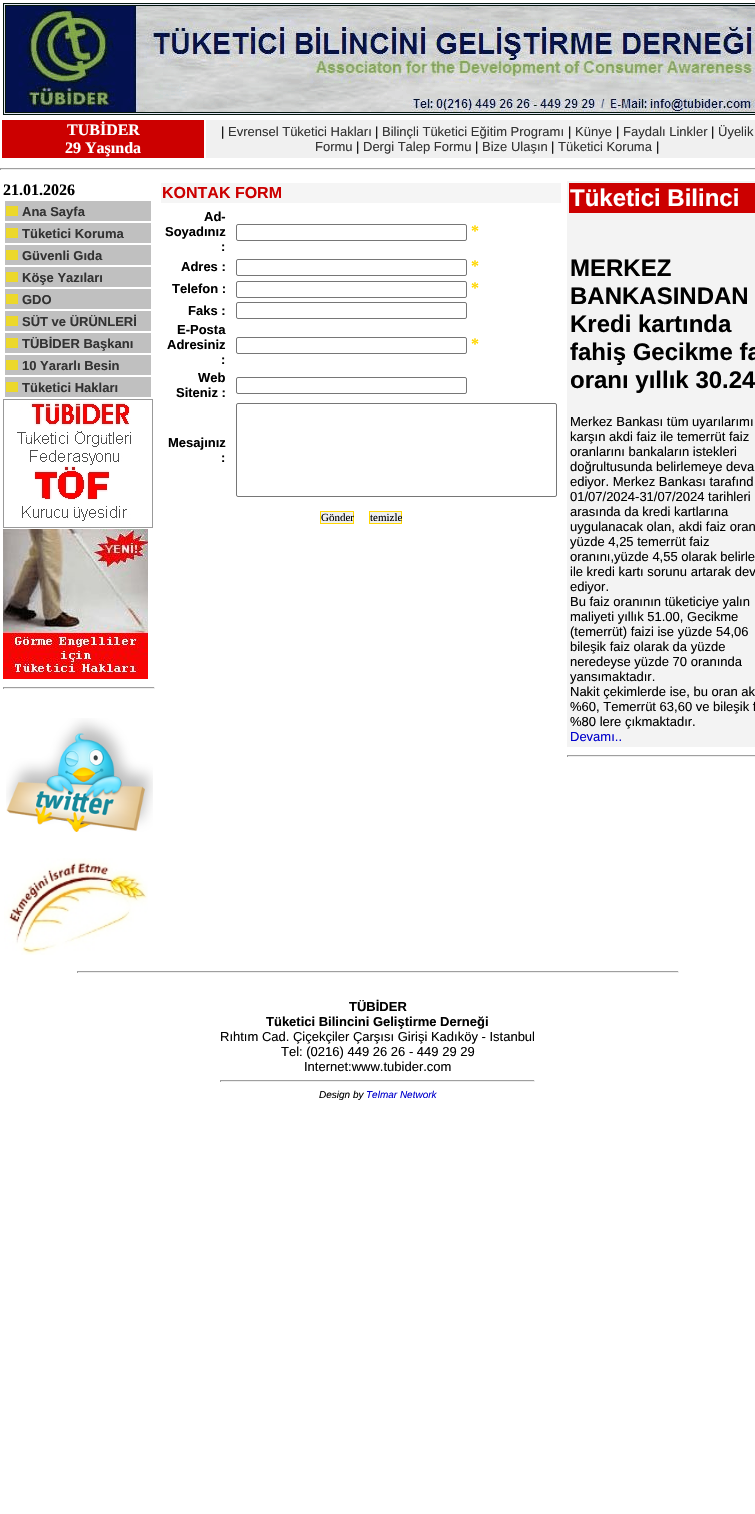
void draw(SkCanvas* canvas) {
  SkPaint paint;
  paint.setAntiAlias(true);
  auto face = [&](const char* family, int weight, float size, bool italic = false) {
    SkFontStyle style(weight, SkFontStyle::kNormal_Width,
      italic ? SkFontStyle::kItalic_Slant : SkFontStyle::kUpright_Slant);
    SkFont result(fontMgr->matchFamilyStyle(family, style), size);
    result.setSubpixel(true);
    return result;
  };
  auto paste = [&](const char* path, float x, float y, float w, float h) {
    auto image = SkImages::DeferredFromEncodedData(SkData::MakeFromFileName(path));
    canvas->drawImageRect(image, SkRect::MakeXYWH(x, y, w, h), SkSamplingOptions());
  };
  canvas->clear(0xffffffff);
  paste("img/1.png", 3, 3, 752, 112);
  {
    const struct { float x, y, w, h; SkColor color; } items[] = {
      {2, 120, 202, 38, 0xffcc0000},
      {206, 120, 549, 38, 0xfff0f0f0},
      {0, 168, 755, 1, 0xff9f9f9f},
      {0, 169, 755, 1, 0xffeeeeee},
      {0, 168, 1, 2, 0xff9f9f9f},
      {5, 201, 146, 20, 0xffc0c0c0},
      {6, 206, 12, 10, 0xffecd82b},
      {5, 223, 146, 20, 0xffc0c0c0},
      {6, 228, 12, 10, 0xffecd82b},
      {5, 245, 146, 20, 0xffc0c0c0},
      {6, 250, 12, 10, 0xffecd82b},
      {5, 267, 146, 20, 0xffc0c0c0},
      {6, 272, 12, 10, 0xffecd82b},
      {5, 289, 146, 20, 0xffc0c0c0},
      {6, 294, 12, 10, 0xffecd82b},
      {5, 311, 146, 20, 0xffc0c0c0},
      {6, 316, 12, 10, 0xffecd82b},
      {5, 333, 146, 20, 0xffc0c0c0},
      {6, 338, 12, 10, 0xffecd82b},
      {5, 355, 146, 20, 0xffc0c0c0},
      {6, 360, 12, 10, 0xffecd82b},
      {5, 377, 146, 20, 0xffc0c0c0},
      {6, 382, 12, 10, 0xffecd82b},
    };
    for (auto [x, y, w, h, color] : items) {
      paint.setColor(color);
      canvas->drawRect(SkRect::MakeXYWH(x, y, w, h), paint);
    }
  }
  paste("img/2.png", 3, 399, 150, 129);
  paste("img/3.png", 3, 529, 145, 150);
  {
    const struct { float x, y, w, h; SkColor color; } items[] = {
      {3, 687, 152, 1, 0xff9f9f9f},
      {154, 687, 1, 2, 0xffeeeeee},
      {3, 688, 152, 1, 0xffeeeeee},
      {3, 687, 1, 2, 0xff9f9f9f},
    };
    for (auto [x, y, w, h, color] : items) {
      paint.setColor(color);
      canvas->drawRect(SkRect::MakeXYWH(x, y, w, h), paint);
    }
  }
  paste("img/4.png", 6, 718, 147, 114);
  paste("img/5.png", 4, 858, 144, 97);
  paint.setColor(0xfff5f5f5);
  canvas->drawRect(SkRect::MakeXYWH(161, 183, 400, 20), paint);
  paint.setStroke(true);
  paint.setStrokeWidth(1);
  paint.setColor(0xff767676);
  canvas->drawRoundRect(SkRect::MakeXYWH(236.5f, 224.5f, 230, 16), 1.5f, 1.5f, paint);
  canvas->drawRoundRect(SkRect::MakeXYWH(236.5f, 259.5f, 230, 16), 1.5f, 1.5f, paint);
  canvas->drawRoundRect(SkRect::MakeXYWH(236.5f, 281.5f, 230, 16), 1.5f, 1.5f, paint);
  canvas->drawRoundRect(SkRect::MakeXYWH(236.5f, 302.5f, 230, 16), 1.5f, 1.5f, paint);
  canvas->drawRoundRect(SkRect::MakeXYWH(236.5f, 337.5f, 230, 16), 1.5f, 1.5f, paint);
  canvas->drawRoundRect(SkRect::MakeXYWH(236.5f, 377.5f, 230, 16), 1.5f, 1.5f, paint);
  canvas->drawRoundRect(SkRect::MakeXYWH(236.5f, 403.5f, 320, 93), 1.5f, 1.5f, paint);
  paint.setStroke(false);
  paint.setColor(0xffefefef);
  canvas->drawRect(SkRect::MakeXYWH(320.5f, 511.5f, 33, 12), paint);
  paint.setStroke(true);
  paint.setColor(0xffffd700);
  canvas->drawRect(SkRect::MakeXYWH(320.5f, 511.5f, 33, 12), paint);
  paint.setStroke(false);
  paint.setColor(0xffefefef);
  canvas->drawRect(SkRect::MakeXYWH(369.5f, 511.5f, 32, 12), paint);
  paint.setStroke(true);
  paint.setColor(0xffffd700);
  canvas->drawRect(SkRect::MakeXYWH(369.5f, 511.5f, 32, 12), paint);
  paint.setStroke(false);
  {
    const struct { float x, y, w, h; SkColor color; } items[] = {
      {567, 181, 188, 566, 0xfff3f3f3},
      {569, 183, 186, 30, 0xffcc0000},
      {567, 755, 188, 1, 0xff9f9f9f},
      {567, 756, 188, 1, 0xffeeeeee},
      {567, 755, 1, 2, 0xff9f9f9f},
      {77, 971, 602, 1, 0xff9f9f9f},
      {678, 971, 1, 2, 0xffeeeeee},
      {77, 972, 602, 1, 0xffeeeeee},
      {77, 971, 1, 2, 0xff9f9f9f},
      {220, 1080, 315, 1, 0xff9f9f9f},
      {534, 1080, 1, 2, 0xffeeeeee},
      {220, 1081, 315, 1, 0xffeeeeee},
      {220, 1080, 1, 2, 0xff9f9f9f},
    };
    for (auto [x, y, w, h, color] : items) {
      paint.setColor(color);
      canvas->drawRect(SkRect::MakeXYWH(x, y, w, h), paint);
    }
  }
  auto f0 = face("Liberation Serif", 700, 16);
  paint.setColor(0xffffffff);
  canvas->drawString("TUBİDER", 67, 135, f0, paint);
  canvas->drawString("29 Yaşında", 65, 153, f0, paint);
  auto f1 = face("Liberation Sans", 400, 13);
  paint.setColor(0xff000000);
  canvas->drawString("|", 221, 136, f1, paint);
  paint.setColor(0xff333333);
  canvas->drawString("Evrensel Tüketici Hakları", 228, 136, f1, paint);
  paint.setColor(0xff000000);
  canvas->drawString("|", 375, 136, f1, paint);
  paint.setColor(0xff333333);
  canvas->drawString("Bilinçli Tüketici Eğitim Programı", 382, 136, f1, paint);
  paint.setColor(0xff000000);
  canvas->drawString("|", 568, 136, f1, paint);
  paint.setColor(0xff333333);
  canvas->drawString("Künye", 575, 136, f1, paint);
  paint.setColor(0xff000000);
  canvas->drawString("|", 616, 136, f1, paint);
  paint.setColor(0xff333333);
  canvas->drawString("Faydalı Linkler", 623, 136, f1, paint);
  paint.setColor(0xff000000);
  canvas->drawString("|", 711, 136, f1, paint);
  paint.setColor(0xff333333);
  canvas->drawString("Üyelik", 718, 136, f1, paint);
  canvas->drawString("Formu", 315, 151, f1, paint);
  paint.setColor(0xff000000);
  canvas->drawString("|", 356, 151, f1, paint);
  paint.setColor(0xff333333);
  canvas->drawString("Dergi Talep Formu", 363, 151, f1, paint);
  paint.setColor(0xff000000);
  canvas->drawString("|", 475, 151, f1, paint);
  paint.setColor(0xff333333);
  canvas->drawString("Bize Ulaşın", 482, 151, f1, paint);
  paint.setColor(0xff000000);
  canvas->drawString("|", 551, 151, f1, paint);
  paint.setColor(0xff333333);
  canvas->drawString("Tüketici Koruma", 558, 151, f1, paint);
  paint.setColor(0xff000000);
  canvas->drawString("|", 656, 151, f1, paint);
  canvas->drawString("21.01.2026", 3, 195, f0, paint);
  auto f2 = face("Liberation Sans", 700, 13);
  paint.setColor(0xff333333);
  {
    const struct { const char* s; float x, y; } items[] = {
      {"Ana Sayfa", 22, 216},
      {"Tüketici Koruma", 22, 238},
      {"Güvenli Gıda", 22, 260},
      {"Köşe Yazıları", 22, 282},
      {"GDO", 22, 304},
      {"SÜT ve ÜRÜNLERİ", 22, 326},
      {"TÜBİDER Başkanı", 22, 348},
      {"10 Yararlı Besin", 22, 370},
      {"Tüketici Hakları", 22, 392},
    };
    for (auto [s, x, y] : items) {
      canvas->drawString(s, x, y, f2, paint);
    }
  }
  auto f3 = face("Liberation Sans", 700, 16);
  paint.setColor(0xffcc0000);
  canvas->drawString("KONTAK FORM", 162, 198, f3, paint);
  paint.setColor(0xff000000);
  {
    const struct { const char* s; float x, y; } items[] = {
      {"Ad-", 204, 221},
      {"Soyadınız", 165, 236},
      {":", 221, 251},
    };
    for (auto [s, x, y] : items) {
      canvas->drawString(s, x, y, f2, paint);
    }
  }
  paint.setColor(0xffffd700);
  canvas->drawString("*", 471, 236, f0, paint);
  paint.setColor(0xff000000);
  canvas->drawString("Adres :", 181, 271, f2, paint);
  paint.setColor(0xffffd700);
  canvas->drawString("*", 471, 271, f0, paint);
  paint.setColor(0xff000000);
  canvas->drawString("Telefon :", 172, 293, f2, paint);
  paint.setColor(0xffffd700);
  canvas->drawString("*", 471, 293, f0, paint);
  paint.setColor(0xff000000);
  {
    const struct { const char* s; float x, y; } items[] = {
      {"Faks :", 188, 315},
      {"E-Posta", 177, 334},
      {"Adresiniz", 167, 349},
      {":", 221, 364},
    };
    for (auto [s, x, y] : items) {
      canvas->drawString(s, x, y, f2, paint);
    }
  }
  paint.setColor(0xffffd700);
  canvas->drawString("*", 471, 349, f0, paint);
  paint.setColor(0xff000000);
  {
    const struct { const char* s; float x, y; } items[] = {
      {"Web", 198, 382},
      {"Siteniz :", 176, 397},
      {"Mesajınız", 168, 447},
      {":", 221, 462},
    };
    for (auto [s, x, y] : items) {
      canvas->drawString(s, x, y, f2, paint);
    }
  }
  auto f4 = face("Liberation Serif", 400, 11);
  canvas->drawString("Gönder", 321, 521, f4, paint);
  canvas->drawString("temizle", 370, 521, f4, paint);
  auto f5 = face("Liberation Sans", 700, 24);
  paint.setColor(0xffffffff);
  canvas->drawString("Tüketici Bilinci", 570, 206, f5, paint);
  paint.setColor(0xff000000);
  {
    const struct { const char* s; float x, y; } items[] = {
      {"MERKEZ", 570, 276},
      {"BANKASINDAN", 570, 304},
      {"Kredi kartında", 570, 332},
      {"fahiş Gecikme fa", 570, 360},
      {"oranı yıllık 30.24", 570, 388},
    };
    for (auto [s, x, y] : items) {
      canvas->drawString(s, x, y, f5, paint);
    }
  }
  {
    const struct { const char* s; float x, y; } items[] = {
      {"Merkez Bankası tüm uyarılarımı", 570, 426},
      {"karşın akdi faiz ile temerrüt faiz", 570, 441},
      {"oranlarını bankaların istekleri", 570, 456},
      {"doğrultusunda belirlemeye deva", 570, 471},
      {"ediyor. Merkez Bankası tarafınd", 570, 486},
      {"01/07/2024-31/07/2024 tarihleri", 570, 501},
      {"arasında da kredi kartlarına", 570, 516},
      {"uygulanacak olan, akdi faiz oran", 570, 531},
      {"yüzde 4,25 temerrüt faiz", 570, 546},
      {"oranını,yüzde 4,55 olarak belirle", 570, 561},
      {"ile kredi kartı sorunu artarak dev", 570, 576},
      {"ediyor.", 570, 591},
      {"Bu faiz oranının tüketiciye yalın", 570, 606},
      {"maliyeti yıllık 51.00, Gecikme", 570, 621},
      {"(temerrüt) faizi ise yüzde 54,06", 570, 636},
      {"bileşik faiz olarak da yüzde", 570, 651},
      {"neredeyse yüzde 70 oranında", 570, 666},
      {"yansımaktadır.", 570, 681},
      {"Nakit çekimlerde ise, bu oran ak", 570, 696},
      {"%60, Temerrüt 63,60 ve bileşik f", 570, 711},
      {"%80 lere çıkmaktadır.", 570, 726},
    };
    for (auto [s, x, y] : items) {
      canvas->drawString(s, x, y, f1, paint);
    }
  }
  paint.setColor(0xff0000cc);
  canvas->drawString("Devamı..", 570, 741, f1, paint);
  paint.setColor(0xff000000);
  canvas->drawString("TÜBİDER", 349, 1011, f2, paint);
  canvas->drawString("Tüketici Bilincini Geliştirme Derneği", 266, 1026, f2, paint);
  {
    const struct { const char* s; float x, y; } items[] = {
      {"Rıhtım Cad. Çiçekçiler Çarşısı Girişi Kadıköy - Istanbul", 220, 1041},
      {"Tel: (0216) 449 26 26 - 449 29 29", 281, 1056},
      {"Internet:www.tubider.com", 304, 1071},
    };
    for (auto [s, x, y] : items) {
      canvas->drawString(s, x, y, f1, paint);
    }
  }
  auto f6 = face("Liberation Sans", 400, 10, true);
  canvas->drawString("Design by", 319, 1098, f6, paint);
  paint.setColor(0xff0000cc);
  canvas->drawString("Telmar Network", 366, 1098, f6, paint);
}
